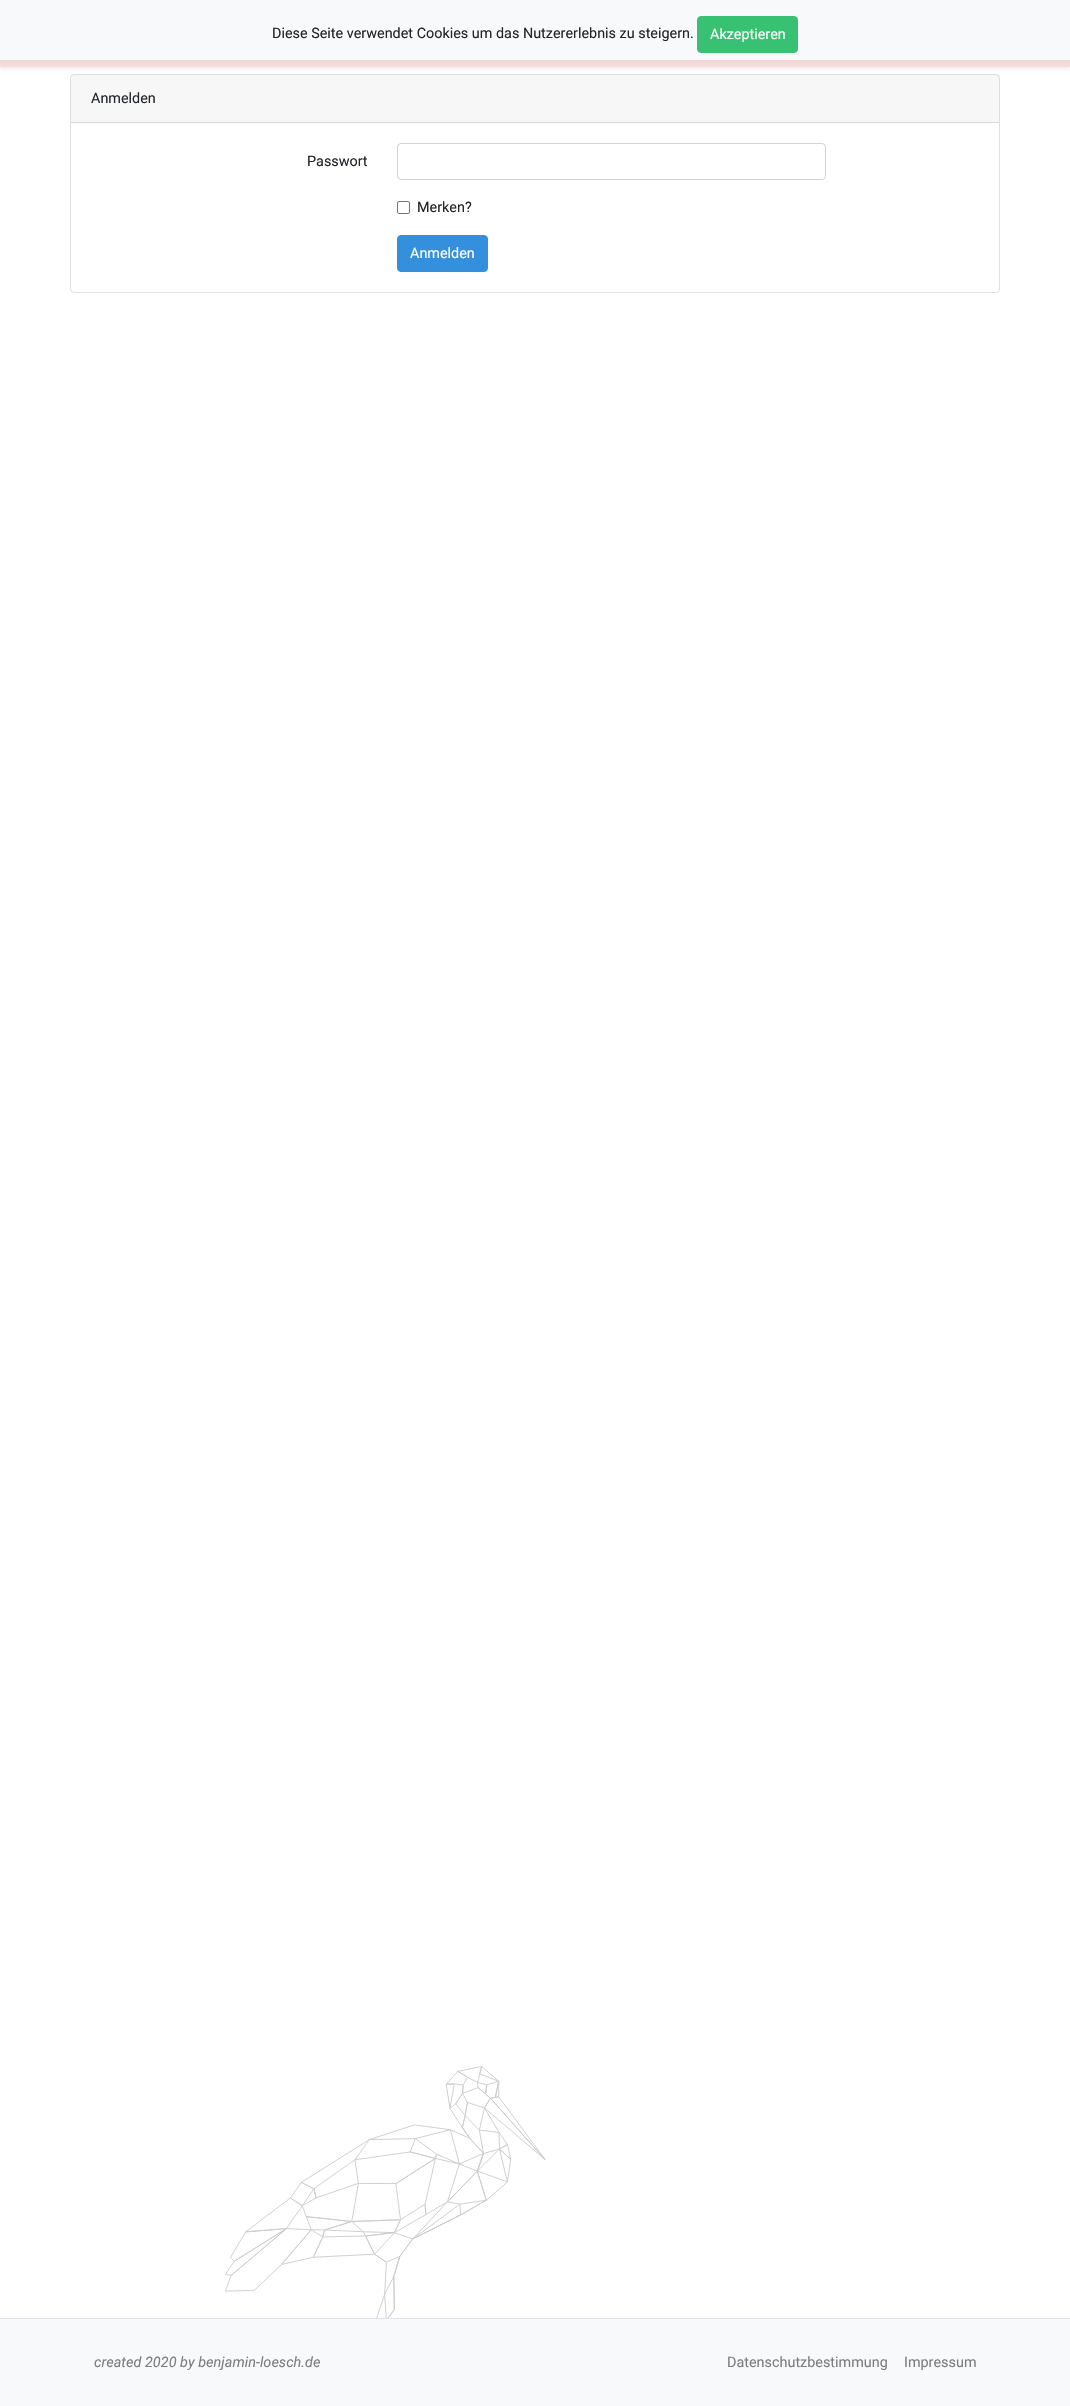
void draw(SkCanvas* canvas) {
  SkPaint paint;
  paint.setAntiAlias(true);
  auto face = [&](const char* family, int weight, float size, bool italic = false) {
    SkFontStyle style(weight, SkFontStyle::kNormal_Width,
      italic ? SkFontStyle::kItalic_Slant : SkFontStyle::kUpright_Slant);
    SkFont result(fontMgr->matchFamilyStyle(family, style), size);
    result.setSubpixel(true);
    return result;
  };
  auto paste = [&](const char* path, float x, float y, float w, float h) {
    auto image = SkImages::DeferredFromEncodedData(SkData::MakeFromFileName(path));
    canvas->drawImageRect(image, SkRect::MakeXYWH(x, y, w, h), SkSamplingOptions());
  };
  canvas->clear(0xffffffff);
  paste("img/1.png", 225, 2066, 321, 252);
  paint.setStroke(true);
  paint.setStrokeWidth(1);
  paint.setColor(0xffdfdfdf);
  canvas->drawRoundRect(SkRect::MakeXYWH(70.5f, 74.5f, 929, 218), 3.5f, 3.5f, paint);
  paint.setStroke(false);
  paint.setColor(0x08000000);
  canvas->drawRect(SkRect::MakeXYWH(71, 75, 928, 47), paint);
  paint.setColor(0x12000000);
  paint.setMaskFilter(SkMaskFilter::MakeBlur(kNormal_SkBlurStyle, 2));
  canvas->drawRect(SkRect::MakeXYWH(0, 2, 1070, 67), paint);
  paint.setMaskFilter(nullptr);
  {
    const SkColor colors[] = {0xffca8a8a, 0xfff4dfdf};
    const float stops[] = {0, 1};
    const SkPoint ends[] = {{535, 0}, {535, 67}};
    paint.setShader(SkGradientShader::MakeLinear(ends, colors, stops, 2, SkTileMode::kClamp));
    paint.setAlpha(255);
  }
  canvas->drawRect(SkRect::MakeXYWH(0, 60, 1070, 7), paint);
  paint.setShader(nullptr);
  paint.setColor(0xfff8f9fa);
  canvas->drawRect(SkRect::MakeXYWH(0, 0, 1070, 60), paint);
  paint.setColor(0xff38c172);
  canvas->drawRoundRect(SkRect::MakeXYWH(697.5f, 16.5f, 100, 36), 3.5f, 3.5f, paint);
  paint.setStroke(true);
  canvas->drawRoundRect(SkRect::MakeXYWH(697.5f, 16.5f, 100, 36), 3.5f, 3.5f, paint);
  paint.setStroke(false);
  paint.setColor(0xffd8d8d8);
  canvas->drawRect(SkRect::MakeXYWH(71, 122, 928, 1), paint);
  paint.setStroke(true);
  paint.setColor(0xffced4da);
  canvas->drawRoundRect(SkRect::MakeXYWH(397.5f, 143.5f, 428, 36), 3.5f, 3.5f, paint);
  paint.setColor(0xff767676);
  canvas->drawRoundRect(SkRect::MakeXYWH(397.5f, 201.5f, 12, 12), 1.5f, 1.5f, paint);
  paint.setStroke(false);
  paint.setColor(0xff3490dc);
  canvas->drawRoundRect(SkRect::MakeXYWH(397.5f, 235.5f, 90, 36), 3.5f, 3.5f, paint);
  paint.setStroke(true);
  canvas->drawRoundRect(SkRect::MakeXYWH(397.5f, 235.5f, 90, 36), 3.5f, 3.5f, paint);
  paint.setStroke(false);
  paint.setColor(0xfff8f9fa);
  canvas->drawRect(SkRect::MakeXYWH(0, 2319, 1070, 87), paint);
  paint.setColor(0xffdee2e6);
  canvas->drawRect(SkRect::MakeXYWH(0, 2318, 1070, 1), paint);
  auto f0 = face("Roboto", 400, 14.4f);
  paint.setColor(0xff212529);
  canvas->drawString("Diese Seite verwendet Cookies um das Nutzererlebnis zu steigern.", 272, 38, f0, paint);
  paint.setColor(0xffffffff);
  canvas->drawString("Akzeptieren", 710, 39, f0, paint);
  paint.setColor(0xff212529);
  {
    const struct { const char* s; float x, y; } items[] = {
      {"Anmelden", 91, 103},
      {"Passwort", 307, 166},
      {"Merken?", 417, 212},
    };
    for (auto [s, x, y] : items) {
      canvas->drawString(s, x, y, f0, paint);
    }
  }
  paint.setColor(0xffffffff);
  canvas->drawString("Anmelden", 410, 258, f0, paint);
  auto f1 = face("Roboto", 400, 14.4f, true);
  paint.setColor(0xff7c7d7d);
  canvas->drawString("created 2020 by benjamin-loesch.de", 94, 2367, f1, paint);
  canvas->drawString("Datenschutzbestimmung", 727, 2367, f0, paint);
  canvas->drawString("Impressum", 904, 2367, f0, paint);
}
